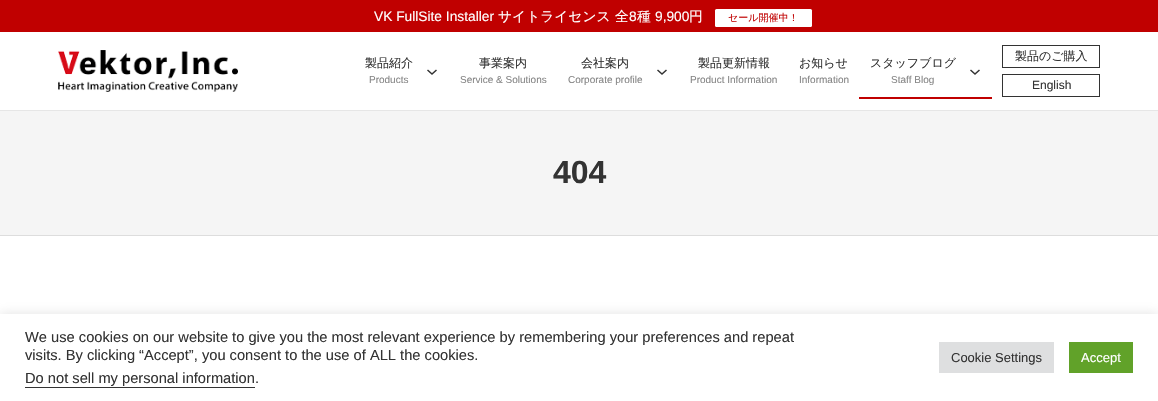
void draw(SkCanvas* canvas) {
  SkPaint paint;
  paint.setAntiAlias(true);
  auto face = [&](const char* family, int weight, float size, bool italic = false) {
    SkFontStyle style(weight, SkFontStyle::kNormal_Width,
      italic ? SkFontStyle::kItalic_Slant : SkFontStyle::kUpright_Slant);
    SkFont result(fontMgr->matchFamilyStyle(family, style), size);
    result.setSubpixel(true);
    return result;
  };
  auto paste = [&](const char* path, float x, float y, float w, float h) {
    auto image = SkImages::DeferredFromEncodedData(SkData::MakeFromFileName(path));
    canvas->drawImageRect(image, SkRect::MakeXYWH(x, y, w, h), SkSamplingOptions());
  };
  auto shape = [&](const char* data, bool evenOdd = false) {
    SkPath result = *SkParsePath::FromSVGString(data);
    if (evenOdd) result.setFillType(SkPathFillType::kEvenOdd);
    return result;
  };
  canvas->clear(0xffffffff);
  paint.setColor(0xffc00000);
  canvas->drawRect(SkRect::MakeXYWH(0, 0, 1158, 32), paint);
  paint.setColor(0xffffffff);
  canvas->drawRoundRect(SkRect::MakeXYWH(715, 9, 97, 18), 1.5f, 1.5f, paint);
  paste("img/1.png", 58, 50, 180, 42);
  paint.setStroke(true);
  paint.setStrokeWidth(1.5f);
  paint.setColor(0xff333333);
  canvas->drawPath(shape("M427.5 70L432 74L436.5 70"), paint);
  canvas->drawPath(shape("M657.5 70L662 74L666.5 70"), paint);
  paint.setStroke(false);
  paint.setColor(0xffc00000);
  canvas->drawRect(SkRect::MakeXYWH(859, 97, 133, 2), paint);
  paint.setStroke(true);
  paint.setColor(0xff333333);
  canvas->drawPath(shape("M970.5 70L975 74L979.5 70"), paint);
  paint.setStrokeWidth(1);
  canvas->drawRect(SkRect::MakeXYWH(1002.5f, 45.5f, 97, 22), paint);
  canvas->drawRect(SkRect::MakeXYWH(1002.5f, 74.5f, 97, 22), paint);
  paint.setStroke(false);
  {
    const struct { float x, y, w, h; SkColor color; } items[] = {
      {0, 110, 1158, 1, 0xffe6e6e6},
      {0, 111, 1158, 124, 0xfff5f5f5},
      {0, 235, 1158, 1, 0xffdddddd},
    };
    for (auto [x, y, w, h, color] : items) {
      paint.setColor(color);
      canvas->drawRect(SkRect::MakeXYWH(x, y, w, h), paint);
    }
  }
  paint.setColor(0x4dacabab);
  paint.setMaskFilter(SkMaskFilter::MakeBlur(kNormal_SkBlurStyle, 5));
  canvas->drawRect(SkRect::MakeXYWH(0, 313, 1158, 87), paint);
  paint.setMaskFilter(nullptr);
  {
    const struct { float x, y, w, h; SkColor color; } items[] = {
      {0, 314, 1158, 87, 0xffffffff},
      {25, 387, 230, 1, 0xff333333},
      {939, 342, 115, 31, 0xffdedfe0},
      {1069, 342, 64, 31, 0xff61a229},
    };
    for (auto [x, y, w, h, color] : items) {
      paint.setColor(color);
      canvas->drawRect(SkRect::MakeXYWH(x, y, w, h), paint);
    }
  }
  auto f0 = face("Liberation Sans", 400, 13.75f);
  paint.setColor(0xffffffff);
  canvas->drawString("VK FullSite Installer", 374, 21, f0, paint);
  auto f1 = face("WenQuanYi Zen Hei", 500, 13.75f);
  canvas->drawString("サイトライセンス", 498, 21, f1, paint);
  canvas->drawString("全", 615, 21, f1, paint);
  canvas->drawString("8", 629, 21, f0, paint);
  canvas->drawString("種", 637, 21, f1, paint);
  canvas->drawString("9,900", 655, 21, f0, paint);
  canvas->drawString("円", 689, 21, f1, paint);
  auto f2 = face("WenQuanYi Zen Hei", 500, 10);
  paint.setColor(0xffc00000);
  canvas->drawString("セール開催中！", 728, 21, f2, paint);
  auto f3 = face("WenQuanYi Zen Hei", 500, 12);
  paint.setColor(0xff333333);
  canvas->drawString("製品紹介", 365, 67, f3, paint);
  auto f4 = face("Liberation Sans", 400, 10);
  paint.setColor(0xff858585);
  canvas->drawString("Products", 369, 83, f4, paint);
  paint.setColor(0xff333333);
  canvas->drawString("事業案内", 479, 67, f3, paint);
  paint.setColor(0xff858585);
  canvas->drawString("Service & Solutions", 460, 83, f4, paint);
  paint.setColor(0xff333333);
  canvas->drawString("会社案内", 581, 67, f3, paint);
  paint.setColor(0xff858585);
  canvas->drawString("Corporate profile", 568, 83, f4, paint);
  paint.setColor(0xff333333);
  canvas->drawString("製品更新情報", 698, 67, f3, paint);
  paint.setColor(0xff858585);
  canvas->drawString("Product Information", 690, 83, f4, paint);
  paint.setColor(0xff333333);
  canvas->drawString("お知らせ", 799, 67, f3, paint);
  paint.setColor(0xff858585);
  canvas->drawString("Information", 799, 83, f4, paint);
  paint.setColor(0xff333333);
  canvas->drawString("スタッフブログ", 870, 67, f3, paint);
  paint.setColor(0xff858585);
  canvas->drawString("Staff Blog", 891, 83, f4, paint);
  paint.setColor(0xff333333);
  canvas->drawString("製品のご購入", 1015, 60, f3, paint);
  auto f5 = face("Liberation Sans", 400, 12);
  canvas->drawString("English", 1032, 89, f5, paint);
  auto f6 = face("Liberation Sans", 700, 32);
  canvas->drawString("404", 553, 183, f6, paint);
  auto f7 = face("Liberation Sans", 400, 14.67f);
  {
    const struct { const char* s; float x, y; } items[] = {
      {"We use cookies on our website to give you the most relevant experience by remembering your preferences and repeat", 25, 342},
      {"visits. By clicking “Accept”, you consent to the use of ALL the cookies.", 25, 360},
      {"Do not sell my personal information.", 25, 383},
    };
    for (auto [s, x, y] : items) {
      canvas->drawString(s, x, y, f7, paint);
    }
  }
  auto f8 = face("Liberation Sans", 400, 13);
  canvas->drawString("Cookie Settings", 951, 362, f8, paint);
  paint.setColor(0xffffffff);
  canvas->drawString("Accept", 1081, 362, f8, paint);
}
